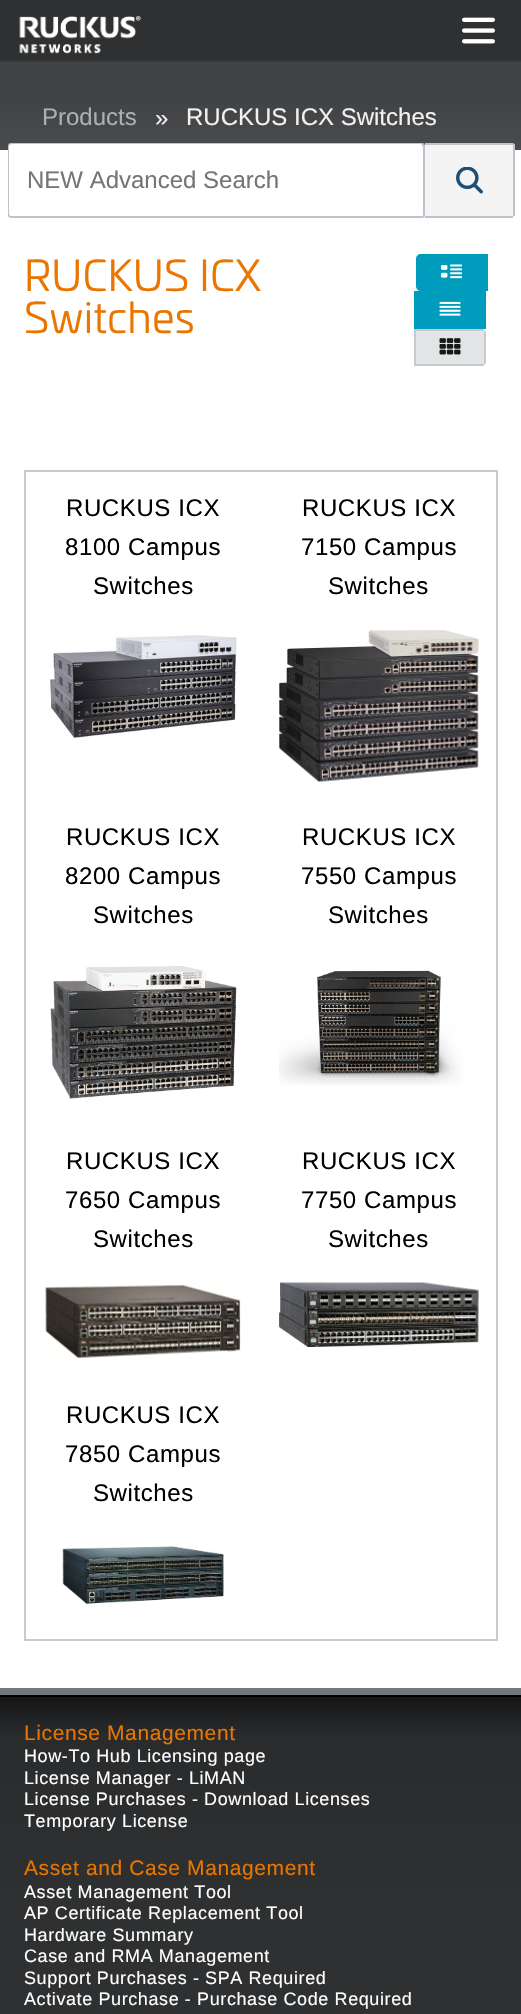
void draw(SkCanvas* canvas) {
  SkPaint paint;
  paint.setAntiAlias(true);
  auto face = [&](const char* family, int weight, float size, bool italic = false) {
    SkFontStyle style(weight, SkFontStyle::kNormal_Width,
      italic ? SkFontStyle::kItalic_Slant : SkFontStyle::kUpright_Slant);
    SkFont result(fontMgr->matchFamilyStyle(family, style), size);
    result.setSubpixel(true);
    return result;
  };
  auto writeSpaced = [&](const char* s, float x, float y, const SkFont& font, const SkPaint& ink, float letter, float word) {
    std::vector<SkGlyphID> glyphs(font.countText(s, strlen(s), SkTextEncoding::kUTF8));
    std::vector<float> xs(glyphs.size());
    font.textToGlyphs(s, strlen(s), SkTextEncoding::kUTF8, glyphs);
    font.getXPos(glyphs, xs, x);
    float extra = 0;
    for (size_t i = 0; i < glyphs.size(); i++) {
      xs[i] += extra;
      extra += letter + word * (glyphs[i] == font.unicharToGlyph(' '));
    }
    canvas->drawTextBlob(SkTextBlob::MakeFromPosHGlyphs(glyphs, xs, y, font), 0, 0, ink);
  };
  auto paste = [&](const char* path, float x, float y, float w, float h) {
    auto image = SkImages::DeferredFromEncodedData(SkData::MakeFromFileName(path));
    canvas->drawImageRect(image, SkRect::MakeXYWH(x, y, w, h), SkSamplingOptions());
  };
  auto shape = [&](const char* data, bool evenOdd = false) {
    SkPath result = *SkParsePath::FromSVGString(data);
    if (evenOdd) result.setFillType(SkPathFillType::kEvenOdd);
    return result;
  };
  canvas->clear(0xffffffff);
  {
    const SkColor colors[] = {0xff2f3031, 0xff2f3031, 0xff75787b, 0xff75787b};
    const float stops[] = {0, 0.06f, 0.29f, 1};
    const SkPoint ends[] = {{261, 0}, {261, 1695}};
    paint.setShader(SkGradientShader::MakeLinear(ends, colors, stops, 4, SkTileMode::kClamp));
    paint.setAlpha(255);
  }
  canvas->drawRect(SkRect::MakeXYWH(0, 0, 521, 1695), paint);
  {
    const SkColor colors[] = {0xff424344, 0xff424344, 0xff818487, 0xff818487};
    const float stops[] = {0, 0.06f, 0.29f, 1};
    const SkPoint ends[] = {{261, 0}, {261, 1695}};
    paint.setShader(SkGradientShader::MakeLinear(ends, colors, stops, 4, SkTileMode::kClamp));
    paint.setAlpha(255);
  }
  canvas->drawRect(SkRect::MakeXYWH(0, 62, 521, 88), paint);
  paint.setShader(nullptr);
  paint.setColor(0xff353637);
  canvas->drawRect(SkRect::MakeXYWH(0, 60, 521, 2), paint);
  paste("img/1.png", 19, 15, 122, 39);
  paste("img/2.png", 462, 17, 33, 27);
  paint.setColor(0xffffffff);
  canvas->drawRect(SkRect::MakeXYWH(0, 150, 521, 1538), paint);
  paint.setStroke(true);
  paint.setStrokeWidth(2);
  paint.setColor(0xffbcc3ca);
  canvas->drawRoundRect(SkRect::MakeXYWH(9, 144, 415, 73), 2, 2, paint);
  paint.setStroke(false);
  paint.setColor(0xffffffff);
  canvas->drawRoundRect(SkRect::MakeXYWH(9, 144, 414, 72), 3, 3, paint);
  paint.setColor(0xfff4f4f4);
  canvas->drawPath(shape("M425 143H512C513.5 143 515 144.5 515 146V215C515 216.5 513.5 218 512 218H425Z"), paint);
  {
    const struct { float x, y, w, h; SkColor color; } items[] = {
      {425, 143, 88, 2, 0xffbcc3ca},
      {513, 144, 2, 72, 0xffbcc3ca},
      {425, 216, 88, 2, 0xffbcc3ca},
    };
    for (auto [x, y, w, h, color] : items) {
      paint.setColor(color);
      canvas->drawRect(SkRect::MakeXYWH(x, y, w, h), paint);
    }
  }
  paste("img/3.png", 456, 167, 27, 27);
  paint.setColor(0xff009cbd);
  canvas->drawPath(shape("M421 254H488V291H421C418 291 416 289 416 286V259C416 256 418 254 421 254Z"), paint);
  paste("img/4.png", 441, 264, 21, 15);
  canvas->drawRect(SkRect::MakeXYWH(414, 291, 72, 38), paint);
  paste("img/5.png", 439, 301, 22, 15);
  paint.setColor(0xffe3e4e5);
  canvas->drawPath(shape("M414 329H481C484 329 486 331 486 334V361C486 364 484 366 481 366H414Z"), paint);
  paint.setColor(0xffc7c9ca);
  canvas->drawPath(shape("M414 329V366H481C484 366 486 364 486 361V334C486 331 484 329 481 329ZM416 331V364H484V331Z", true), paint);
  paste("img/6.png", 439, 338, 22, 17);
  paint.setStroke(true);
  canvas->drawRect(SkRect::MakeXYWH(25, 471, 472, 1169), paint);
  paste("img/7.png", 49, 635, 189, 104);
  paste("img/8.png", 279, 630, 200, 152);
  paste("img/9.png", 50, 966, 187, 133);
  paste("img/10.png", 279, 970, 184, 116);
  paste("img/11.png", 45, 1284, 196, 75);
  paste("img/12.png", 279, 1282, 200, 65);
  paste("img/13.png", 62, 1546, 162, 58);
  paint.setStroke(false);
  {
    const SkColor colors[] = {0xff161617, 0xff2a2b2c, 0xff2f3031, 0xff2f3031};
    const float stops[] = {0, 0.03f, 0.16f, 1};
    const SkPoint ends[] = {{261, 1697}, {261, 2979}};
    paint.setShader(SkGradientShader::MakeLinear(ends, colors, stops, 4, SkTileMode::kClamp));
    paint.setAlpha(255);
  }
  canvas->drawRect(SkRect::MakeXYWH(0, 1697, 521, 317), paint);
  paint.setShader(nullptr);
  paint.setColor(0xff000000);
  canvas->drawRect(SkRect::MakeXYWH(0, 1695, 521, 2), paint);
  auto f0 = face("Liberation Sans", 400, 24);
  paint.setColor(0xffacaeb0);
  canvas->drawString("Products", 42, 125, f0, paint);
  paint.setColor(0xfff1f1f2);
  canvas->drawString("»", 155, 126, f0, paint);
  canvas->drawString("RUCKUS ICX Switches", 186, 125, f0, paint);
  paint.setColor(0xff757575);
  canvas->drawString("NEW Advanced Search", 27, 188, f0, paint);
  auto f1 = face("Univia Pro", 400, 42);
  paint.setColor(0xffea7600);
  writeSpaced("RUCKUS ICX", 24, 291, f1, paint, 0.25f, 0);
  writeSpaced("Switches", 24, 333, f1, paint, 0.25f, 0);
  paint.setColor(0xff000000);
  {
    const struct { const char* s; float x, y; } items[] = {
      {"RUCKUS ICX", 66, 516},
      {"8100 Campus", 65, 555},
      {"Switches", 93, 594},
      {"RUCKUS ICX", 302, 516},
      {"7150 Campus", 301, 555},
      {"Switches", 328, 594},
      {"RUCKUS ICX", 66, 845},
      {"8200 Campus", 65, 884},
      {"Switches", 93, 923},
      {"RUCKUS ICX", 302, 845},
      {"7550 Campus", 301, 884},
      {"Switches", 328, 923},
      {"RUCKUS ICX", 66, 1169},
      {"7650 Campus", 65, 1208},
      {"Switches", 93, 1247},
      {"RUCKUS ICX", 302, 1169},
      {"7750 Campus", 301, 1208},
      {"Switches", 328, 1247},
      {"RUCKUS ICX", 66, 1423},
      {"7850 Campus", 65, 1462},
      {"Switches", 93, 1501},
    };
    for (auto [s, x, y] : items) {
      writeSpaced(s, x, y, f0, paint, 0.6f, 0);
    }
  }
  auto f2 = face("Liberation Sans", 400, 21);
  paint.setColor(0xffea7600);
  writeSpaced("License Management", 24, 1740, f2, paint, 0.6f, 0);
  auto f3 = face("Liberation Sans", 400, 18);
  paint.setColor(0xffffffff);
  {
    const struct { const char* s; float x, y; } items[] = {
      {"How-To Hub Licensing page", 24, 1762},
      {"License Manager - LiMAN", 24, 1784},
      {"License Purchases - Download Licenses", 24, 1805},
      {"Temporary License", 24, 1827},
    };
    for (auto [s, x, y] : items) {
      writeSpaced(s, x, y, f3, paint, 0.6f, 0);
    }
  }
  paint.setColor(0xffea7600);
  writeSpaced("Asset and Case Management", 24, 1875, f2, paint, 0.6f, 0);
  paint.setColor(0xffffffff);
  {
    const struct { const char* s; float x, y; } items[] = {
      {"Asset Management Tool", 24, 1898},
      {"AP Certificate Replacement Tool", 24, 1919},
      {"Hardware Summary", 24, 1941},
      {"Case and RMA Management", 24, 1962},
      {"Support Purchases - SPA Required", 24, 1984},
      {"Activate Purchase - Purchase Code Required", 24, 2005},
    };
    for (auto [s, x, y] : items) {
      writeSpaced(s, x, y, f3, paint, 0.6f, 0);
    }
  }
}
